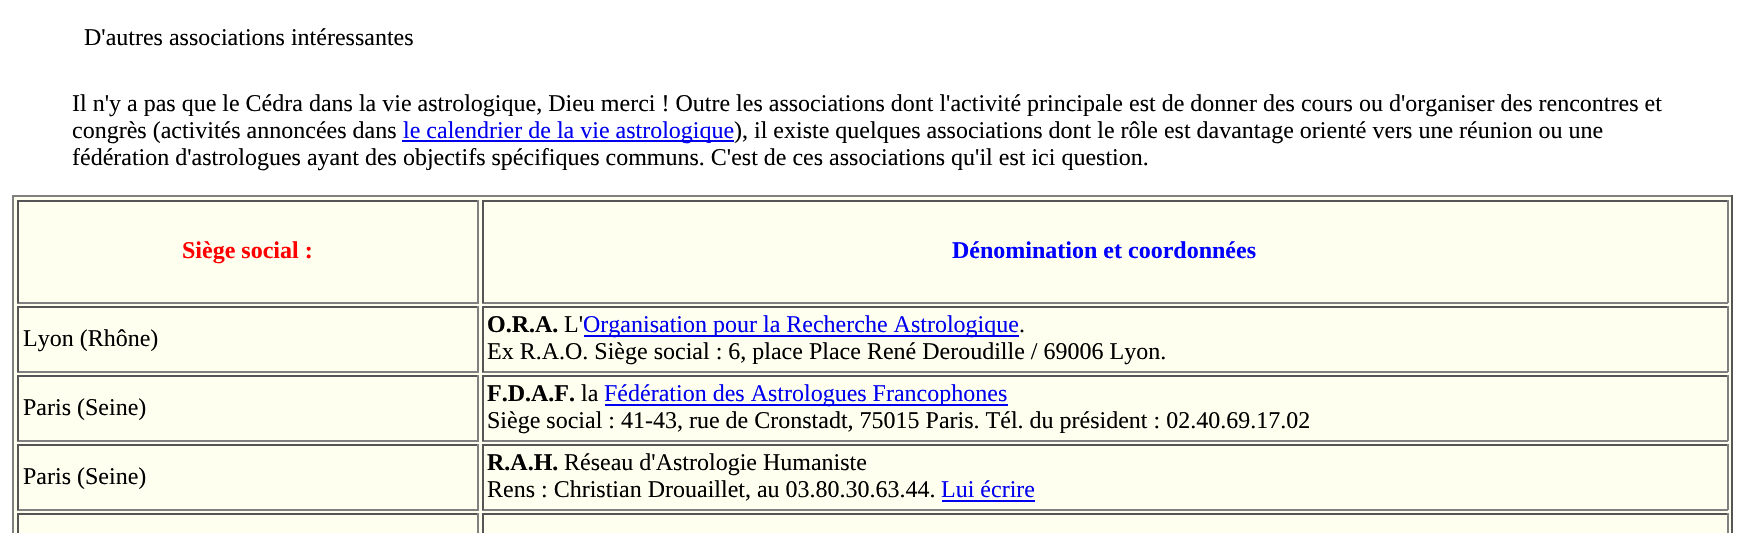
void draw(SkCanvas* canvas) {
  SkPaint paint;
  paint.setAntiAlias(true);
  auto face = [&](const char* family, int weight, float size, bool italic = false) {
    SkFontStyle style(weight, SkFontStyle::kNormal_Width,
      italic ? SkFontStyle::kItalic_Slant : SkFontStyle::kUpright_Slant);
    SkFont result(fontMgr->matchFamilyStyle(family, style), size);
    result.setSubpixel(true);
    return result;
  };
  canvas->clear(0xffffffff);
  {
    const struct { float x, y, w, h; SkColor color; } items[] = {
      {402, 140, 332, 2, 0xff0000ee},
      {14, 197, 1717, 336, 0xfffffff0},
      {12, 195, 1721, 2, 0xff808080},
      {1731, 195, 2, 338, 0xff555555},
      {12, 195, 2, 338, 0xff808080},
      {17, 200, 462, 2, 0xff555555},
      {477, 200, 2, 103, 0xff808080},
      {17, 302, 462, 2, 0xff808080},
      {17, 200, 2, 103, 0xff555555},
      {482, 200, 1246, 2, 0xff555555},
      {1727, 200, 2, 103, 0xff808080},
      {482, 302, 1246, 2, 0xff808080},
      {482, 200, 2, 103, 0xff555555},
      {17, 306, 462, 2, 0xff555555},
      {477, 306, 2, 66, 0xff808080},
      {17, 371, 462, 2, 0xff808080},
      {17, 306, 2, 66, 0xff555555},
      {482, 306, 1246, 2, 0xff555555},
      {1727, 306, 2, 66, 0xff808080},
      {482, 371, 1246, 2, 0xff808080},
      {482, 306, 2, 66, 0xff555555},
      {584, 335, 435, 2, 0xff0000ee},
      {17, 375, 462, 2, 0xff555555},
      {477, 375, 2, 66, 0xff808080},
      {17, 440, 462, 2, 0xff808080},
      {17, 375, 2, 66, 0xff555555},
      {482, 375, 1246, 2, 0xff555555},
      {1727, 375, 2, 66, 0xff808080},
      {482, 440, 1246, 2, 0xff808080},
      {482, 375, 2, 66, 0xff555555},
      {605, 404, 403, 2, 0xff0000ee},
      {17, 444, 462, 2, 0xff555555},
      {477, 444, 2, 66, 0xff808080},
      {17, 509, 462, 2, 0xff808080},
      {17, 444, 2, 66, 0xff555555},
      {482, 444, 1246, 2, 0xff555555},
      {1727, 444, 2, 66, 0xff808080},
      {482, 509, 1246, 2, 0xff808080},
      {482, 444, 2, 66, 0xff555555},
      {942, 500, 93, 2, 0xff0000ee},
      {17, 513, 462, 2, 0xff555555},
      {477, 513, 2, 20, 0xff808080},
      {17, 513, 2, 20, 0xff555555},
      {482, 513, 1246, 2, 0xff555555},
      {1727, 513, 2, 20, 0xff808080},
      {482, 513, 2, 20, 0xff555555},
    };
    for (auto [x, y, w, h, color] : items) {
      paint.setColor(color);
      canvas->drawRect(SkRect::MakeXYWH(x, y, w, h), paint);
    }
  }
  auto f0 = face("Liberation Serif", 400, 24);
  paint.setColor(0xff000000);
  {
    const struct { const char* s; float x, y; } items[] = {
      {"D'autres associations intéressantes", 84, 45},
      {"Il n'y a pas que le Cédra dans la vie astrologique, Dieu merci ! Outre les associations dont l'activité principale est de donner des cours ou d'organiser des rencontres et", 72, 111},
      {"congrès (activités annoncées dans", 72, 138},
    };
    for (auto [s, x, y] : items) {
      canvas->drawString(s, x, y, f0, paint);
    }
  }
  paint.setColor(0xff0000ee);
  canvas->drawString("le calendrier de la vie astrologique", 403, 138, f0, paint);
  paint.setColor(0xff000000);
  canvas->drawString("), il existe quelques associations dont le rôle est davantage orienté vers une réunion ou une", 734, 138, f0, paint);
  canvas->drawString("fédération d'astrologues ayant des objectifs spécifiques communs. C'est de ces associations qu'il est ici question.", 72, 165, f0, paint);
  auto f1 = face("Liberation Serif", 700, 24);
  paint.setColor(0xffff0000);
  canvas->drawString("Siège social :", 182, 258, f1, paint);
  paint.setColor(0xff0000ff);
  canvas->drawString("Dénomination et coordonnées", 952, 258, f1, paint);
  paint.setColor(0xff000000);
  canvas->drawString("Lyon (Rhône)", 23, 346, f0, paint);
  canvas->drawString("O.R.A.", 487, 332, f1, paint);
  canvas->drawString("L'", 564, 332, f0, paint);
  paint.setColor(0xff0000ee);
  canvas->drawString("Organisation pour la Recherche Astrologique", 583, 332, f0, paint);
  paint.setColor(0xff000000);
  {
    const struct { const char* s; float x, y; } items[] = {
      {".", 1019, 332},
      {"Ex R.A.O. Siège social : 6, place Place René Deroudille / 69006 Lyon.", 487, 359},
      {"Paris (Seine)", 23, 415},
    };
    for (auto [s, x, y] : items) {
      canvas->drawString(s, x, y, f0, paint);
    }
  }
  canvas->drawString("F.D.A.F.", 487, 401, f1, paint);
  canvas->drawString("la", 581, 401, f0, paint);
  paint.setColor(0xff0000ee);
  canvas->drawString("Fédération des Astrologues Francophones", 604, 401, f0, paint);
  paint.setColor(0xff000000);
  canvas->drawString("Siège social : 41-43, rue de Cronstadt, 75015 Paris. Tél. du président : 02.40.69.17.02", 487, 428, f0, paint);
  canvas->drawString("Paris (Seine)", 23, 484, f0, paint);
  canvas->drawString("R.A.H.", 487, 470, f1, paint);
  canvas->drawString("Réseau d'Astrologie Humaniste", 564, 470, f0, paint);
  canvas->drawString("Rens : Christian Drouaillet, au 03.80.30.63.44.", 487, 497, f0, paint);
  paint.setColor(0xff0000ee);
  canvas->drawString("Lui écrire", 941, 497, f0, paint);
}
